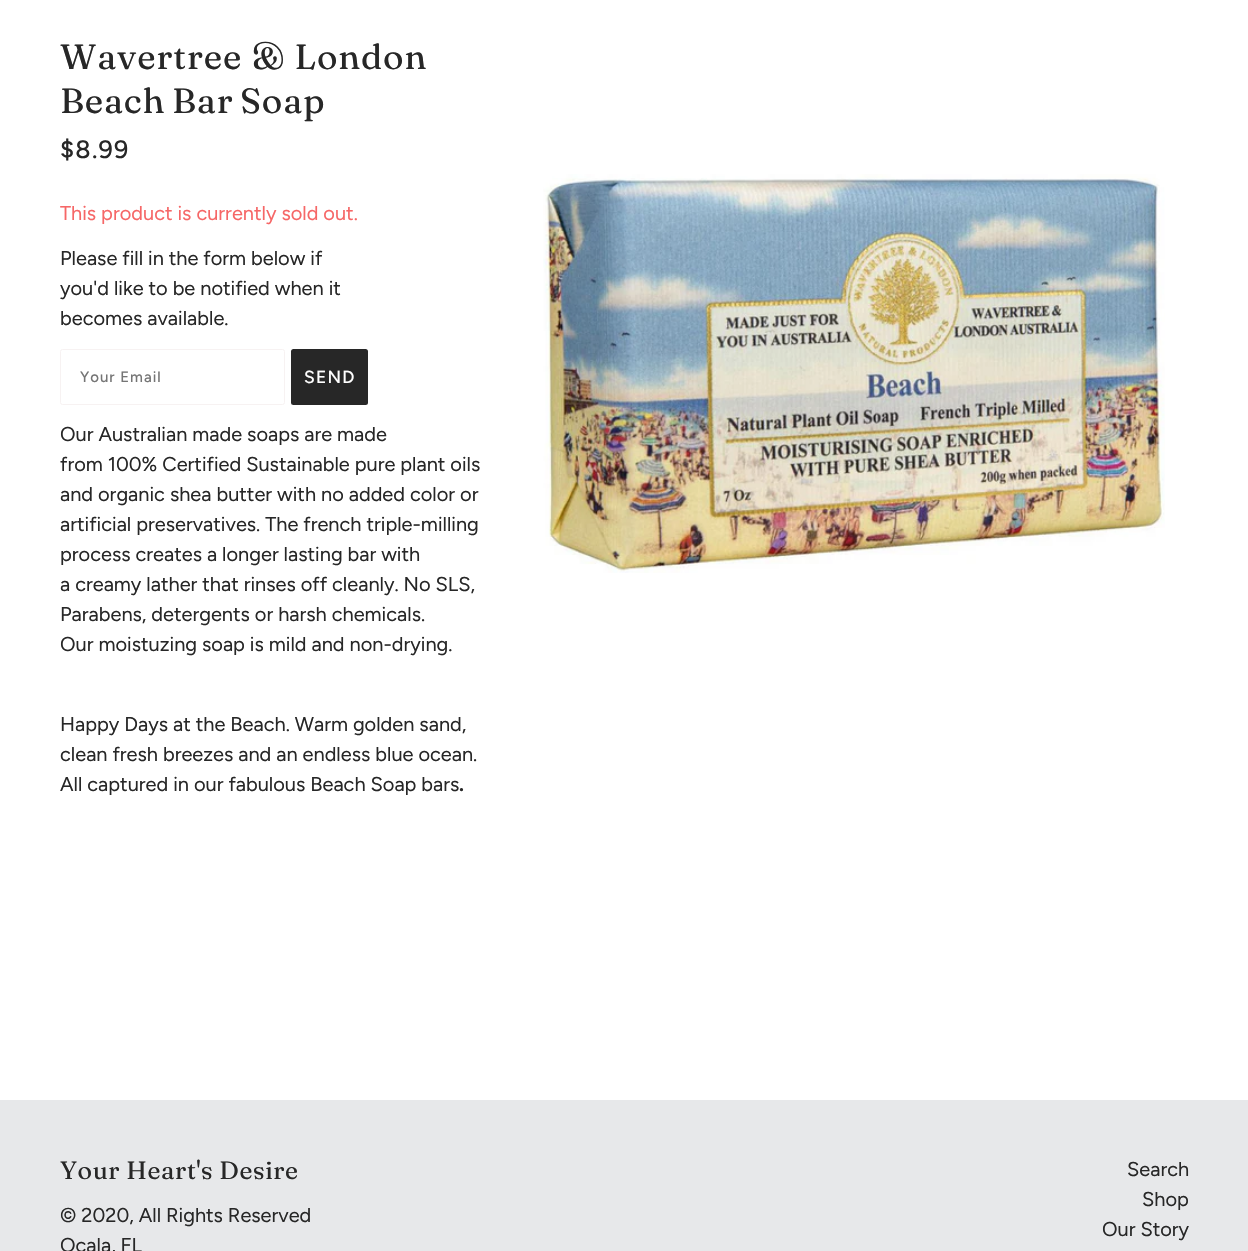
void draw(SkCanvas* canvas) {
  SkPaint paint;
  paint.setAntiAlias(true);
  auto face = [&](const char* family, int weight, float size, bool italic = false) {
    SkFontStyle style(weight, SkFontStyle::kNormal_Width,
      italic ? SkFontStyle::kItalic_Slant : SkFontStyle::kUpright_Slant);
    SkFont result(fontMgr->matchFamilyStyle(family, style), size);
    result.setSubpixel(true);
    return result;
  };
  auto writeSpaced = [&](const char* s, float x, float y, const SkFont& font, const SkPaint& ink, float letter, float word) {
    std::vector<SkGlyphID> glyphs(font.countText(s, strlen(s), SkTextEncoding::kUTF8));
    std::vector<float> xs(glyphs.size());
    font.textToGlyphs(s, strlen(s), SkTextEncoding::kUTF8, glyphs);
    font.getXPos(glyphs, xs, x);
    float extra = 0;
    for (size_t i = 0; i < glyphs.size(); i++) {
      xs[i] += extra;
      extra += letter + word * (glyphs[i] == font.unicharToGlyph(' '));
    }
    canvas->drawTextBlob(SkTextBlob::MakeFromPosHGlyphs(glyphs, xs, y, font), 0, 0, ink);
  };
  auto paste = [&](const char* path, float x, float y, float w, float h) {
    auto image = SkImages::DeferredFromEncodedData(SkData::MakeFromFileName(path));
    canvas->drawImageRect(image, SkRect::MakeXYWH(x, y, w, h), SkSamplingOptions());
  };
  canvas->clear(0xffffffff);
  paint.setStroke(true);
  paint.setStrokeWidth(1);
  paint.setColor(0xfff7f2f2);
  canvas->drawRoundRect(SkRect::MakeXYWH(60.5f, 349.5f, 224, 55), 2, 2, paint);
  paint.setStroke(false);
  paint.setColor(0xff272727);
  canvas->drawRoundRect(SkRect::MakeXYWH(291, 349, 77, 56), 2.5f, 2.5f, paint);
  paste("img/1.png", 543, 174, 622, 399);
  paint.setColor(0xffe7e8ea);
  canvas->drawRect(SkRect::MakeXYWH(0, 1100, 1248, 151), paint);
  auto f0 = face("Fraunces", 400, 35);
  paint.setColor(0xff272727);
  writeSpaced("Wavertree & London", 60, 69, f0, paint, 0.9f, 0);
  writeSpaced("Beach Bar Soap", 60, 113, f0, paint, 0.9f, -2);
  auto f1 = face("Figtree", 500, 25);
  writeSpaced("$8.99", 60, 158, f1, paint, 1.25f, 0);
  auto f2 = face("Figtree", 400, 20);
  paint.setColor(0xfff66767);
  canvas->drawString("This product is currently sold out.", 60, 220, f2, paint);
  paint.setColor(0xff272727);
  {
    const struct { const char* s; float x, y; } items[] = {
      {"Please fill in the form below if", 60, 265},
      {"you'd like to be notified when it", 60, 295},
      {"becomes available.", 60, 325},
    };
    for (auto [s, x, y] : items) {
      canvas->drawString(s, x, y, f2, paint);
    }
  }
  auto f3 = face("Figtree", 500, 15);
  paint.setColor(0xff757575);
  writeSpaced("Your Email", 80, 382, f3, paint, 1, 0);
  auto f4 = face("Figtree", 500, 17.5f);
  paint.setColor(0xffffffff);
  writeSpaced("SEND", 304, 383, f4, paint, 1.25f, 0);
  paint.setColor(0xff272727);
  {
    const struct { const char* s; float x, y; } items[] = {
      {"Our Australian made soaps are made", 60, 441},
      {"from 100% Certified Sustainable pure plant oils", 60, 471},
      {"and organic shea butter with no added color or", 60, 501},
      {"artificial preservatives. The french triple-milling", 60, 531},
      {"process creates a longer lasting bar with", 60, 561},
      {"a creamy lather that rinses off cleanly. No SLS,", 60, 591},
      {"Parabens, detergents or harsh chemicals.", 60, 621},
      {"Our moistuzing soap is mild and non-drying.", 60, 651},
      {"Happy Days at the Beach. Warm golden sand,", 60, 731},
      {"clean fresh breezes and an endless blue ocean.", 60, 761},
      {"All captured in our fabulous Beach Soap bars", 60, 791},
    };
    for (auto [s, x, y] : items) {
      canvas->drawString(s, x, y, f2, paint);
    }
  }
  auto f5 = face("Figtree", 700, 20);
  canvas->drawString(".", 459, 791, f5, paint);
  auto f6 = face("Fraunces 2", 400, 25);
  writeSpaced("Your Heart's Desire", 60, 1179, f6, paint, 0.6f, 0);
  {
    const struct { const char* s; float x, y; } items[] = {
      {"© 2020, All Rights Reserved", 60, 1222},
      {"Ocala, FL", 60, 1252},
      {"Search", 1127, 1176},
      {"Shop", 1142, 1206},
      {"Our Story", 1102, 1236},
    };
    for (auto [s, x, y] : items) {
      canvas->drawString(s, x, y, f2, paint);
    }
  }
}
